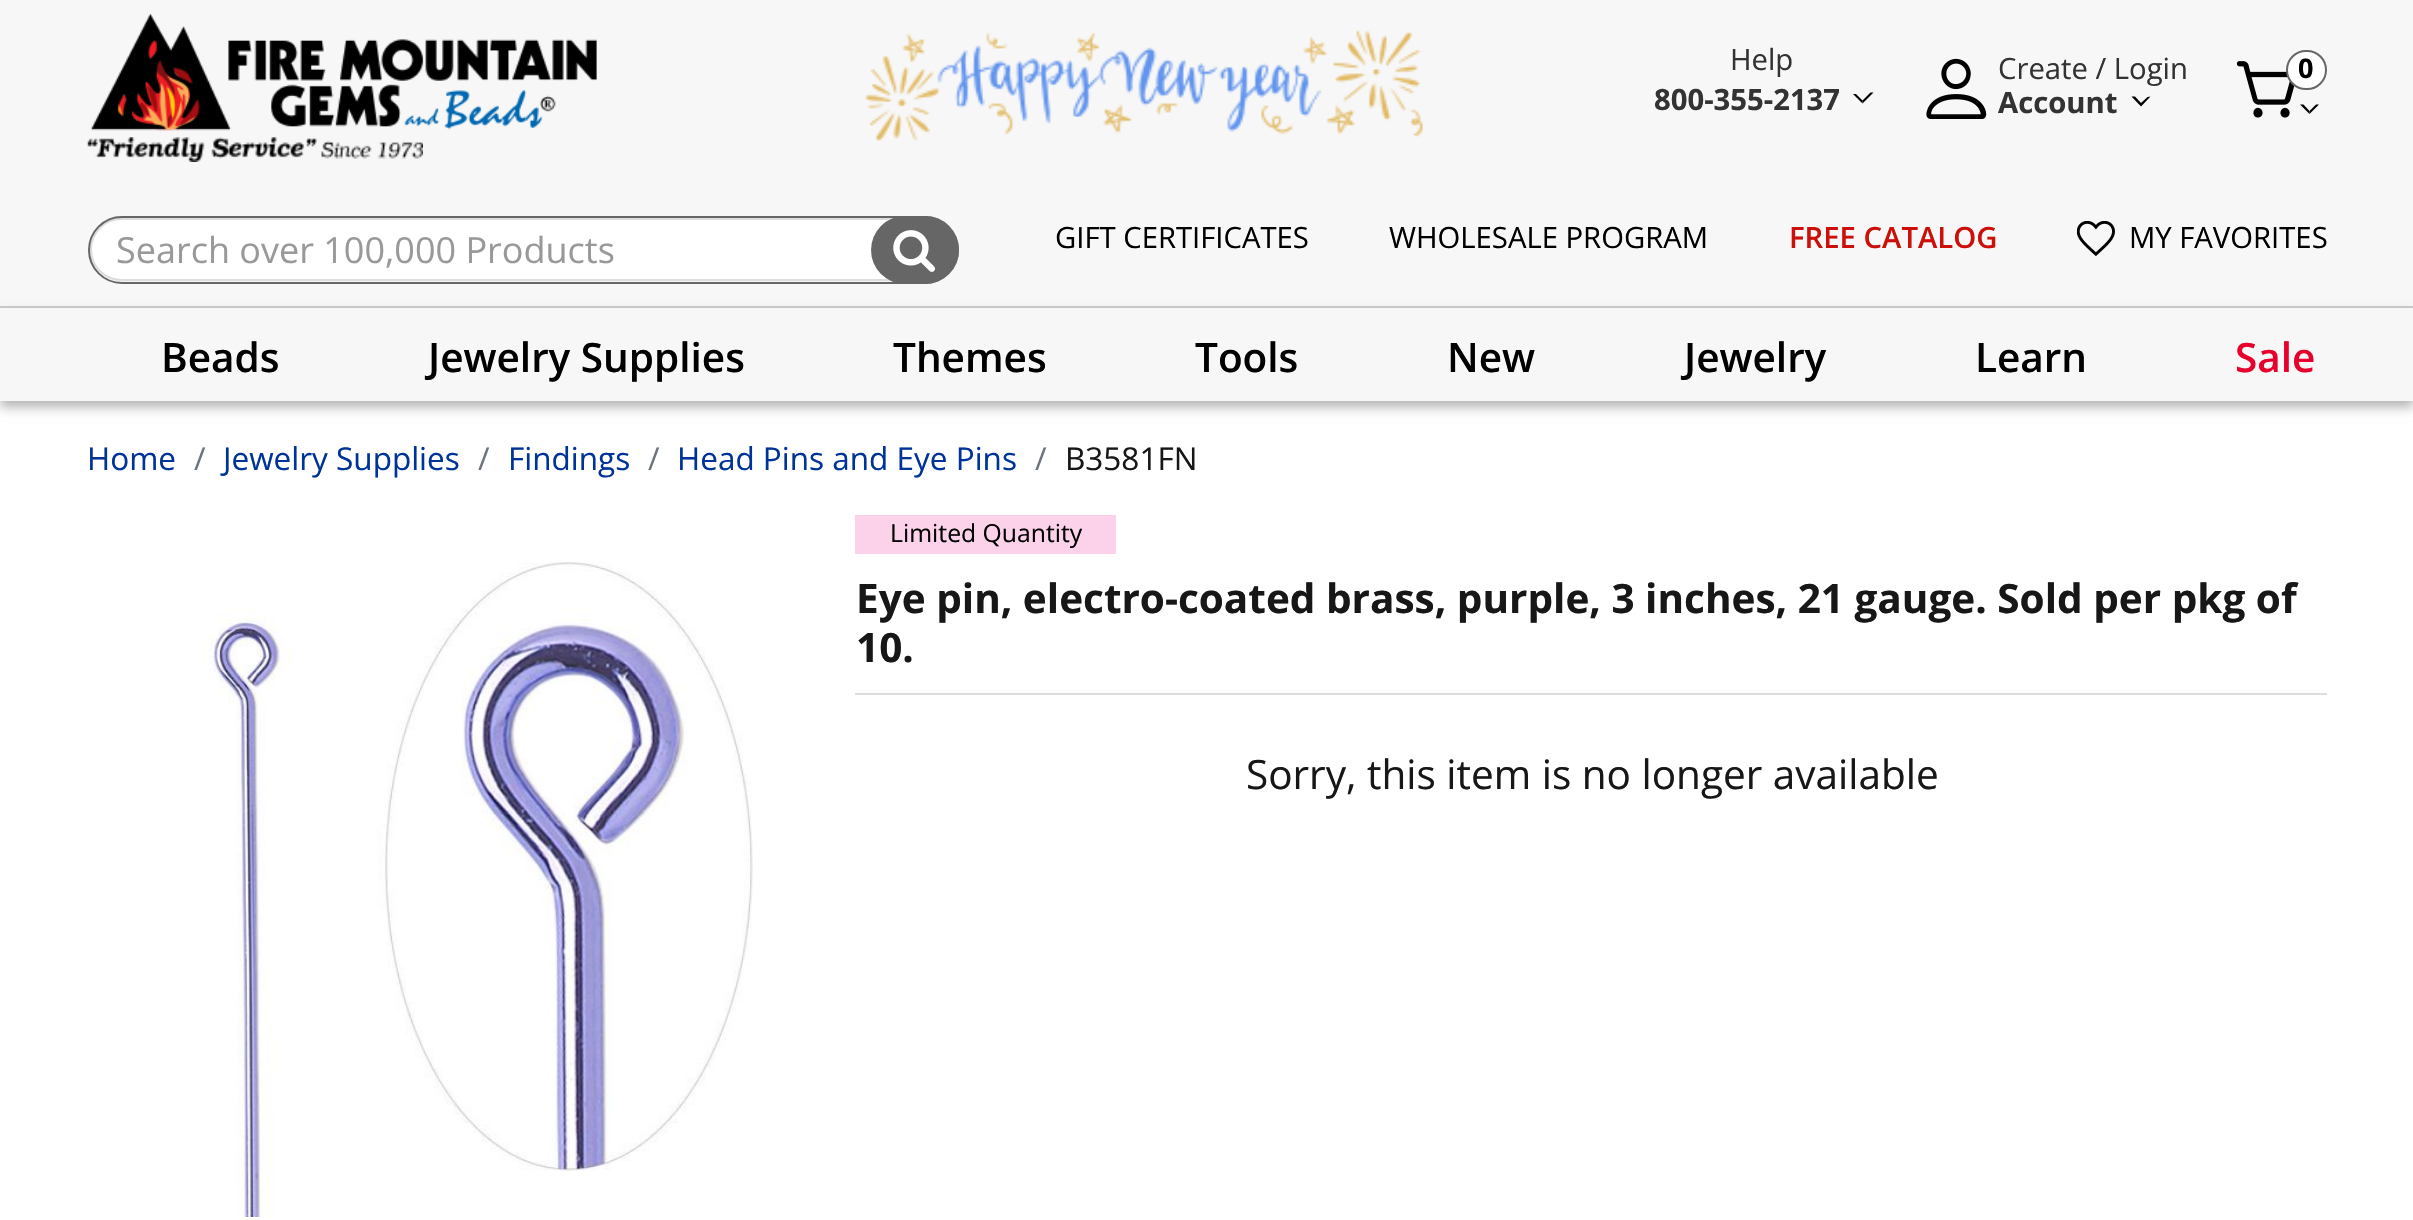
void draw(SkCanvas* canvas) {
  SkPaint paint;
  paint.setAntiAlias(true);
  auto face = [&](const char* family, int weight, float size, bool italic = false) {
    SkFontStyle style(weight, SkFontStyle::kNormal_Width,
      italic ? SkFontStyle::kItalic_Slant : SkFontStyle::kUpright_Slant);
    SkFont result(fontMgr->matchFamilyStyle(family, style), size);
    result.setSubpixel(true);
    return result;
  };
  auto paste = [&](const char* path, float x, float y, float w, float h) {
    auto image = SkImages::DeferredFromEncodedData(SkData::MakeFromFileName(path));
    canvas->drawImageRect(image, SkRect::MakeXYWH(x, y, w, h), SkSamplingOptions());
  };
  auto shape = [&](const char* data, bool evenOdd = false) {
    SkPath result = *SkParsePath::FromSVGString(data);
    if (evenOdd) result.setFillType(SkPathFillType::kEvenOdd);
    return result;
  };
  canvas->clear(0xffffffff);
  paint.setColor(0xfff7f7f7);
  canvas->drawRect(SkRect::MakeXYWH(0, 0, 2413, 306), paint);
  paste("img/1.png", 90, 13, 507, 118);
  paste("img/2.png", 87, 137, 336, 25);
  paste("img/3.png", 865, 30, 558, 111);
  paint.setColor(0xff000000);
  canvas->drawPath(shape("M1873.5 92.5L1862.5 103.5V100.5L1870.5 92.5Z"), paint);
  canvas->drawPath(shape("M1862.5 103.5L1853 94H1856L1862.5 100.5Z"), paint);
  paste("img/4.png", 1926, 58, 61, 61);
  canvas->drawPath(shape("M2150.5 96.5L2141 106.5V103L2147.5 97ZM2141 106.5L2131.5 96.5H2135L2141 103Z"), paint);
  paste("img/5.png", 2236, 61, 59, 57);
  paint.setColor(0xffffffff);
  canvas->drawRoundRect(SkRect::MakeXYWH(2287, 51, 39, 38), 19, 19, paint);
  paint.setStroke(true);
  paint.setStrokeWidth(2);
  paint.setColor(0xff666666);
  canvas->drawRoundRect(SkRect::MakeXYWH(2287, 51, 39, 38), 19, 19, paint);
  paint.setStroke(false);
  paint.setColor(0xff000000);
  canvas->drawPath(shape("M2319 104.5L2309.5 114V111L2316 104.5Z"), paint);
  canvas->drawPath(shape("M2309.5 114L2300 104.5H2303.5L2309.5 111Z"), paint);
  paint.setColor(0xffcccccc);
  canvas->drawRect(SkRect::MakeXYWH(0, 306, 2413, 2), paint);
  paint.setColor(0xffffffff);
  canvas->drawRoundRect(SkRect::MakeXYWH(91, 219, 864, 61), 30.5f, 30.5f, paint);
  paint.setStroke(true);
  paint.setColor(0xffdddddd);
  canvas->drawRoundRect(SkRect::MakeXYWH(91, 219, 864, 61), 30.5f, 30.5f, paint);
  paint.setColor(0xff666666);
  canvas->drawRoundRect(SkRect::MakeXYWH(89, 217, 869, 66), 33, 33, paint);
  paint.setStroke(false);
  canvas->drawRoundRect(SkRect::MakeXYWH(871, 216, 88, 68), 34, 34, paint);
  paste("img/6.png", 893, 230, 42, 42);
  paste("img/7.png", 2077, 221, 38, 36);
  paint.setColor(0x4d000000);
  paint.setMaskFilter(SkMaskFilter::MakeBlur(kNormal_SkBlurStyle, 5.5f));
  canvas->drawRect(SkRect::MakeXYWH(0, 315, 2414, 92), paint);
  paint.setMaskFilter(nullptr);
  paint.setColor(0xfff7f7f7);
  canvas->drawRect(SkRect::MakeXYWH(0, 308, 2413, 93), paint);
  paste("img/8.png", 203, 562, 550, 655);
  paint.setColor(0xfffcd2eb);
  canvas->drawRect(SkRect::MakeXYWH(855, 515, 261, 39), paint);
  paint.setColor(0xffdddddd);
  canvas->drawRect(SkRect::MakeXYWH(855, 693, 1472, 2), paint);
  auto f0 = face("Open Sans", 400, 29.25f);
  paint.setColor(0xff333333);
  canvas->drawString("Help", 1730, 70, f0, paint);
  auto f1 = face("Open Sans", 700, 29.25f);
  canvas->drawString("800-355-2137", 1654, 110, f1, paint);
  canvas->drawString("Create / Login", 1998, 79, f0, paint);
  canvas->drawString("Account", 1998, 113, f1, paint);
  auto f2 = face("Open Sans", 700, 27);
  paint.setColor(0xff000000);
  canvas->drawString("0", 2298, 78, f2, paint);
  auto f3 = face("Open Sans", 400, 36);
  paint.setColor(0xff999999);
  canvas->drawString("Search over 100,000 Products", 116, 263, f3, paint);
  paint.setColor(0xff000000);
  canvas->drawString("GIFT CERTIFICATES", 1055, 248, f0, paint);
  canvas->drawString("WHOLESALE PROGRAM", 1389, 248, f0, paint);
  auto f4 = face("Open Sans", 600, 29.25f);
  paint.setColor(0xffcc0f08);
  canvas->drawString("FREE CATALOG", 1789, 248, f4, paint);
  paint.setColor(0xff000000);
  canvas->drawString("MY FAVORITES", 2129, 248, f0, paint);
  auto f5 = face("Open Sans", 600, 40.5f);
  {
    const struct { const char* s; float x, y; } items[] = {
      {"Beads", 161, 372},
      {"Jewelry Supplies", 428, 372},
      {"Themes", 893, 372},
      {"Tools", 1195, 372},
      {"New", 1447, 372},
      {"Jewelry", 1684, 372},
      {"Learn", 1975, 372},
    };
    for (auto [s, x, y] : items) {
      canvas->drawString(s, x, y, f5, paint);
    }
  }
  paint.setColor(0xffe6002c);
  canvas->drawString("Sale", 2235, 372, f5, paint);
  auto f6 = face("Open Sans", 400, 31.5f);
  paint.setColor(0xff003399);
  canvas->drawString("Home", 87, 470, f6, paint);
  paint.setColor(0xff6c757d);
  canvas->drawString("/", 194, 470, f6, paint);
  paint.setColor(0xff003399);
  canvas->drawString("Jewelry Supplies", 223, 470, f6, paint);
  paint.setColor(0xff6c757d);
  canvas->drawString("/", 478, 470, f6, paint);
  paint.setColor(0xff003399);
  canvas->drawString("Findings", 508, 470, f6, paint);
  paint.setColor(0xff6c757d);
  canvas->drawString("/", 648, 470, f6, paint);
  paint.setColor(0xff003399);
  canvas->drawString("Head Pins and Eye Pins", 677, 470, f6, paint);
  paint.setColor(0xff6c757d);
  canvas->drawString("/", 1035, 470, f6, paint);
  paint.setColor(0xff171717);
  canvas->drawString("B3581FN", 1065, 470, f6, paint);
  auto f7 = face("Open Sans", 400, 24.75f);
  paint.setColor(0xff000000);
  canvas->drawString("Limited Quantity", 890, 542, f7, paint);
  auto f8 = face("Open Sans", 700, 40.5f);
  paint.setColor(0xff171717);
  canvas->drawString("Eye pin, electro-coated brass, purple, 3 inches, 21 gauge. Sold per pkg of", 856, 613, f8, paint);
  canvas->drawString("10.", 856, 662, f8, paint);
  auto f9 = face("Open Sans", 400, 40.5f);
  canvas->drawString("Sorry, this item is no longer available", 1246, 789, f9, paint);
}
